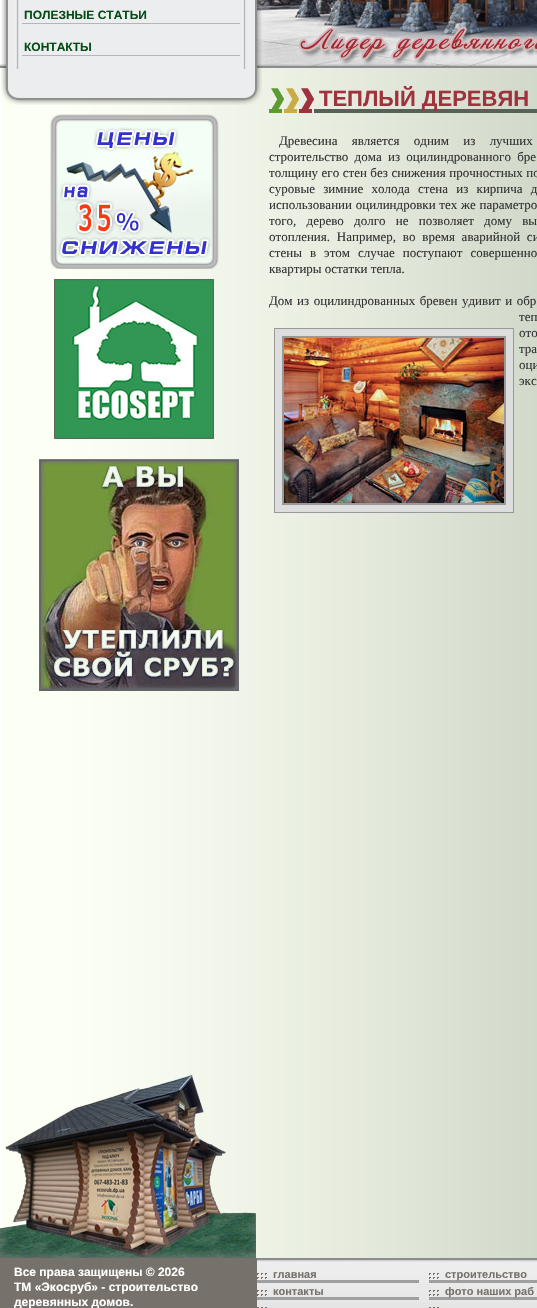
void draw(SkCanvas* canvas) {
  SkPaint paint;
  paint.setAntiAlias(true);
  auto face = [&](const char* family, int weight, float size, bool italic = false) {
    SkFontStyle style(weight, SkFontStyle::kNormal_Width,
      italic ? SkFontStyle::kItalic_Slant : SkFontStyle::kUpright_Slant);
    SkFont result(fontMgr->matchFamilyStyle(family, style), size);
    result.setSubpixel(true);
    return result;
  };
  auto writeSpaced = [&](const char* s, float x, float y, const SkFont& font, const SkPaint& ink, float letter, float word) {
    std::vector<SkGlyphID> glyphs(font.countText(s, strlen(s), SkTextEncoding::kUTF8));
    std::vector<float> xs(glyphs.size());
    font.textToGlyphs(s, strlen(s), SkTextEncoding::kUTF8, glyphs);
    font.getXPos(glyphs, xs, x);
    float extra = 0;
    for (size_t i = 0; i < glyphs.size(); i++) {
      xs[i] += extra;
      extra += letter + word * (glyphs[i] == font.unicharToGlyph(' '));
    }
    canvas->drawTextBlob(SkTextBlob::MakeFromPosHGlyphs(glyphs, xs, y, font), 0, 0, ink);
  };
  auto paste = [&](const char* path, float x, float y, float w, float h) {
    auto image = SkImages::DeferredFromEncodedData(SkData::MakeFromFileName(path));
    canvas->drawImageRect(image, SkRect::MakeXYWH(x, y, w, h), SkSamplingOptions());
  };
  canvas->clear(0xffffffff);
  paste("img/1.png", 0, 0, 6, 64);
  paste("img/7.png", 0, 64, 537, 4);
  paste("img/6.png", 257, 0, 280, 66);
  paste("img/8.png", 0, 68, 537, 1190);
  paste("img/2.png", 1, 0, 261, 105);
  paste("img/3.png", 242, 0, 4, 69);
  paste("img/4.png", 15, 0, 4, 5);
  paste("img/5.png", 15, 5, 4, 32);
  paint.setColor(0xffb4b5b5);
  canvas->drawRect(SkRect::MakeXYWH(22, 23, 218, 1), paint);
  paste("img/5.png", 15, 37, 4, 32);
  canvas->drawRect(SkRect::MakeXYWH(22, 55, 218, 1), paint);
  paste("img/9.png", 50, 114, 169, 155);
  paste("img/10.png", 54, 279, 160, 160);
  paste("img/11.png", 39, 459, 200, 232);
  paste("img/12.png", 269, 88, 45, 25);
  paint.setColor(0xff546258);
  canvas->drawRect(SkRect::MakeXYWH(314, 109, 223, 4), paint);
  paint.setColor(0xffdddddd);
  canvas->drawRect(SkRect::MakeXYWH(274.5f, 328.5f, 239, 184), paint);
  paint.setStroke(true);
  paint.setStrokeWidth(1);
  paint.setColor(0xff999999);
  canvas->drawRect(SkRect::MakeXYWH(274.5f, 328.5f, 239, 184), paint);
  paint.setStrokeWidth(2);
  canvas->drawRect(SkRect::MakeXYWH(283, 337, 222, 167), paint);
  paste("img/13.png", 284, 338, 220, 165);
  paste("img/14.png", 257, 1258, 280, 50);
  paint.setStroke(false);
  paint.setColor(0xff76716a);
  canvas->drawRect(SkRect::MakeXYWH(0, 1258, 257, 50), paint);
  paste("img/15.png", 0, 1075, 256, 183);
  paint.setColor(0xff9e9f9f);
  canvas->drawRect(SkRect::MakeXYWH(257, 1280, 162, 3), paint);
  paste("img/16.png", 257, 1273, 10, 6);
  canvas->drawRect(SkRect::MakeXYWH(257, 1297, 162, 3), paint);
  paste("img/17.png", 257, 1290, 10, 6);
  paste("img/18.png", 257, 1307, 10, 1);
  canvas->drawRect(SkRect::MakeXYWH(429, 1280, 108, 3), paint);
  paste("img/16.png", 429, 1273, 10, 6);
  canvas->drawRect(SkRect::MakeXYWH(429, 1297, 108, 3), paint);
  paste("img/17.png", 429, 1290, 10, 6);
  paste("img/18.png", 429, 1307, 10, 1);
  auto f0 = face("Liberation Sans", 700, 12);
  paint.setColor(0xff044b16);
  canvas->drawString("ПОЛЕЗНЫЕ СТАТЬИ", 24, 19, f0, paint);
  canvas->drawString("КОНТАКТЫ", 24, 51, f0, paint);
  auto f1 = face("Liberation Sans", 700, 22);
  paint.setColor(0xff9f333d);
  canvas->drawString("ТЕПЛЫЙ ДЕРЕВЯН", 319, 106, f1, paint);
  auto f2 = face("Liberation Serif", 400, 13);
  paint.setColor(0xff333333);
  writeSpaced("Древесина является одним из лучших", 279, 145, f2, paint, 0, 11);
  writeSpaced("строительство дома из оцилиндрованного бре", 269, 161, f2, paint, 0, 3);
  writeSpaced("толщину его стен без снижения прочностных по", 269, 177, f2, paint, 0, 0.25f);
  writeSpaced("суровые зимние холода стена из кирпича д", 269, 193, f2, paint, 0, 5);
  writeSpaced("использовании оцилиндровки тех же параметро", 269, 209, f2, paint, 0, 0.5f);
  writeSpaced("того, дерево долго не позволяет дому вы", 269, 225, f2, paint, 0, 7);
  writeSpaced("отопления. Например, во время аварийной си", 269, 241, f2, paint, 0, 3.5f);
  writeSpaced("стены в этом случае поступают совершенно", 269, 257, f2, paint, 0, 4.75f);
  canvas->drawString("квартиры остатки тепла.", 269, 273, f2, paint);
  writeSpaced("Дом из оцилиндрованных бревен удивит и обр", 269, 305, f2, paint, 0, 1.25f);
  writeSpaced("теп", 519, 321, f2, paint, 0, 5);
  writeSpaced("ото", 519, 337, f2, paint, 0, 4);
  writeSpaced("тра", 519, 353, f2, paint, 0, 1);
  writeSpaced("оци", 519, 369, f2, paint, 0, 5);
  canvas->drawString("экс", 519, 385, f2, paint);
  paint.setColor(0xffffffff);
  {
    const struct { const char* s; float x, y; } items[] = {
      {"Все права защищены © 2026", 14, 1276},
      {"ТМ «Экосруб» - строительство", 14, 1291},
      {"деревянных домов.", 14, 1306},
    };
    for (auto [s, x, y] : items) {
      canvas->drawString(s, x, y, f0, paint);
    }
  }
  auto f3 = face("Liberation Sans", 700, 11);
  paint.setColor(0xff76716a);
  {
    const struct { const char* s; float x, y; } items[] = {
      {"главная", 273, 1278},
      {"контакты", 273, 1295},
      {"строительство", 445, 1278},
      {"фото наших раб", 445, 1295},
    };
    for (auto [s, x, y] : items) {
      canvas->drawString(s, x, y, f3, paint);
    }
  }
}
